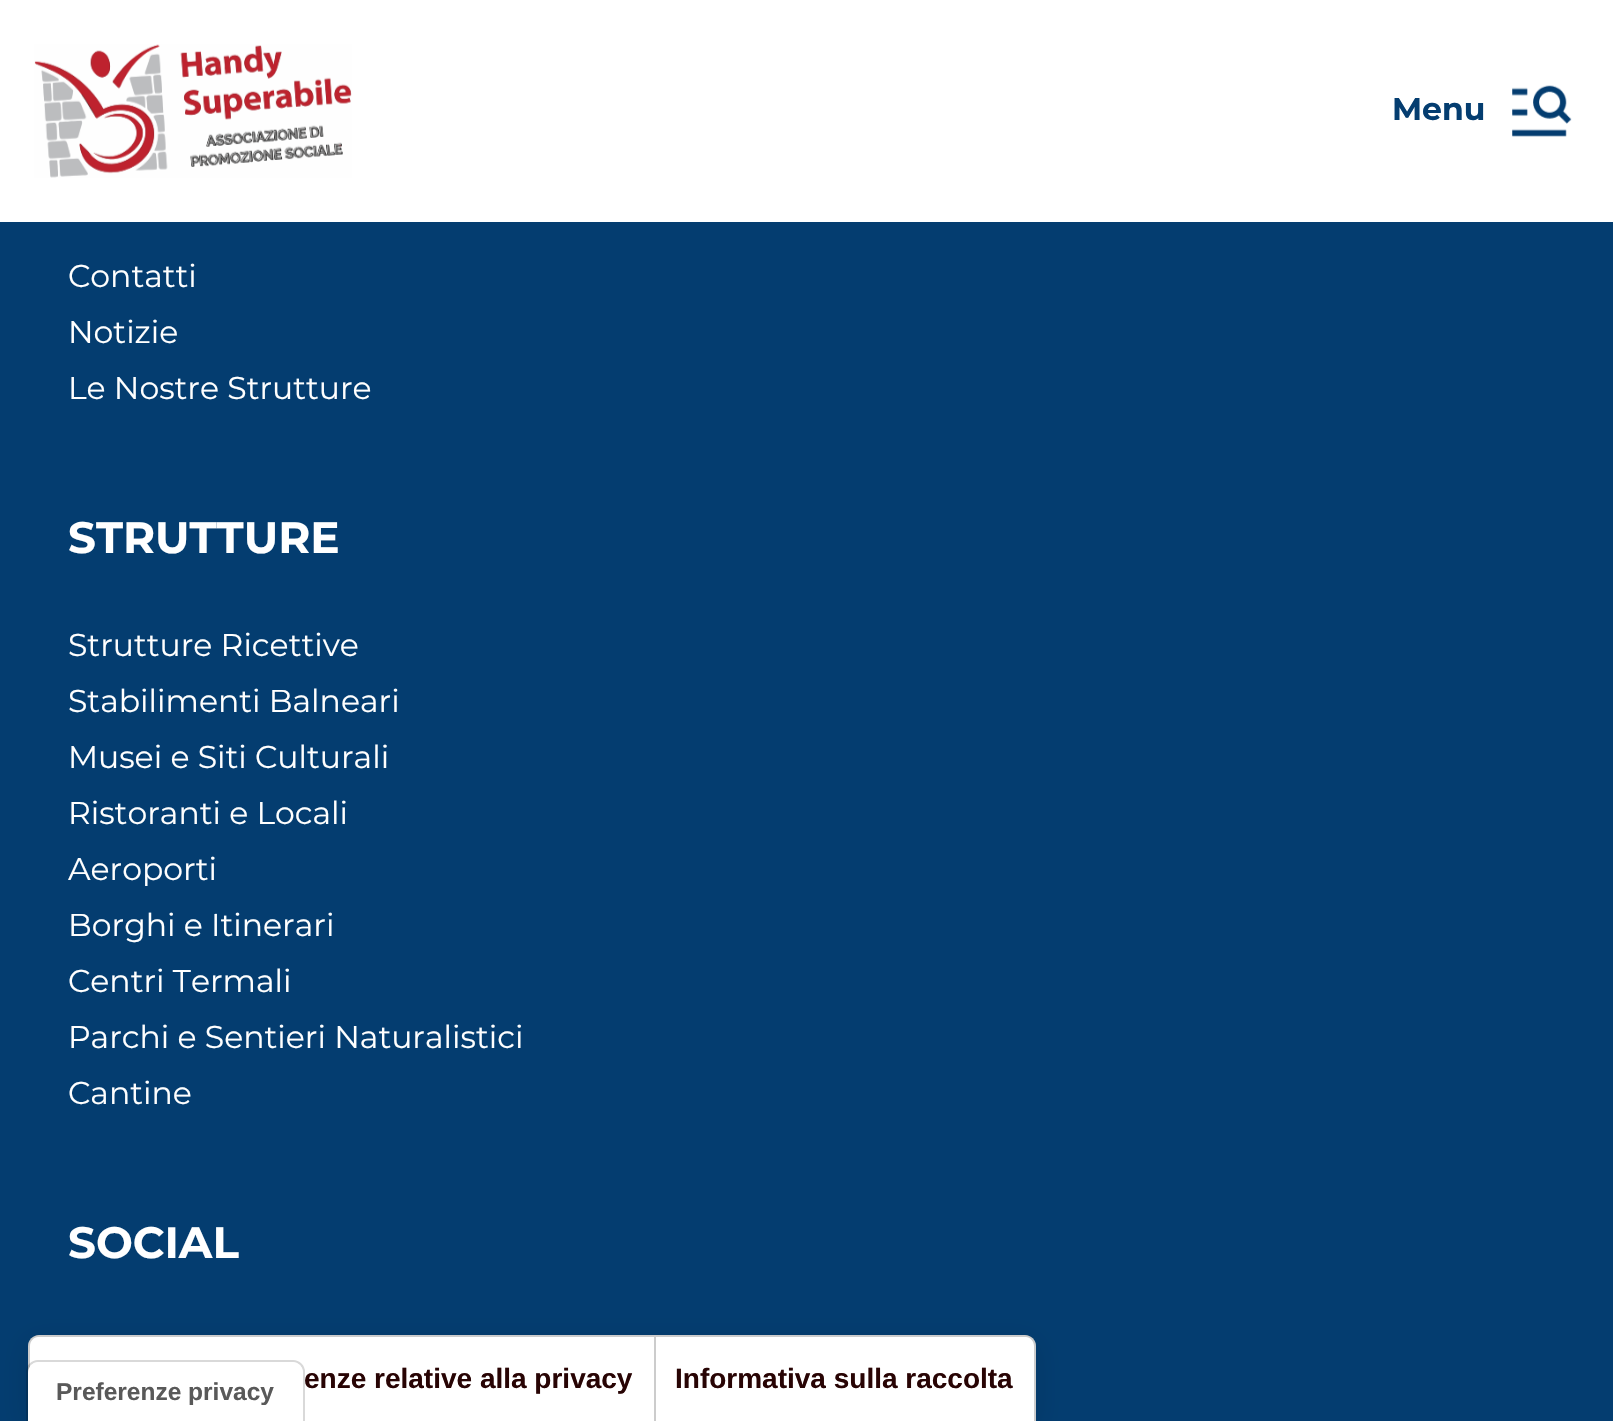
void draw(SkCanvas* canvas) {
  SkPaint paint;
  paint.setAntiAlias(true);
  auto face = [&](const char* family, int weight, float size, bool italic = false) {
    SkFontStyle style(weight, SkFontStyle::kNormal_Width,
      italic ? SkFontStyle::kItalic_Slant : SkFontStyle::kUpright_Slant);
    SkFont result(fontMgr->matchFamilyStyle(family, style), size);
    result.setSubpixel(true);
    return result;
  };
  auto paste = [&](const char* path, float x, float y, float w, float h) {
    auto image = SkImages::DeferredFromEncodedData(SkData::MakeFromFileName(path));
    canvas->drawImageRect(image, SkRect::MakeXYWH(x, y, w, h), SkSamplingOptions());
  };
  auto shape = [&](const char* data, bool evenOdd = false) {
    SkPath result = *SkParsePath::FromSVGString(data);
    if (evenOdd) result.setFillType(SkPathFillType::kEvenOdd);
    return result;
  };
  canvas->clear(0xff043d70);
  paint.setColor(0xffffffff);
  canvas->drawRect(SkRect::MakeXYWH(0, 0, 1613, 222), paint);
  paste("img/1.png", 34, 44, 318, 134);
  paste("img/2.png", 1512, 85, 60, 52);
  paint.setColor(0x1a000000);
  paint.setMaskFilter(SkMaskFilter::MakeBlur(kNormal_SkBlurStyle, 14));
  canvas->drawRoundRect(SkRect::MakeXYWH(28, 1342, 1008, 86), 11, 11, paint);
  paint.setMaskFilter(nullptr);
  paint.setColor(0xffffffff);
  canvas->drawPath(shape("M39 1335H1025C1031 1335 1036 1340 1036 1346V1421H28V1346C28 1340 33 1335 39 1335Z"), paint);
  paint.setColor(0x33000000);
  canvas->drawPath(shape("M38 1335H1026C1031 1335 1036 1340 1036 1346V1421H28V1346C28 1340 33 1335 38 1335ZM38 1337H1026C1030 1337 1034 1341 1034 1346V1421H30V1346C30 1341 34 1337 38 1337Z", true), paint);
  paint.setStroke(true);
  paint.setStrokeWidth(2);
  paint.setColor(0x26000000);
  canvas->drawPath(shape("M38 1361H293C299 1361 304 1366 304 1372V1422H27V1372C27 1366 32 1361 38 1361Z"), paint);
  paint.setStroke(false);
  paint.setColor(0xffffffff);
  canvas->drawPath(shape("M39 1362H292C298 1362 303 1367 303 1373V1421H28V1373C28 1367 33 1362 39 1362Z"), paint);
  paint.setColor(0xffcccccc);
  canvas->drawRect(SkRect::MakeXYWH(654, 1337, 2, 84), paint);
  auto f0 = face("Montserrat", 700, 31.5f);
  paint.setColor(0xff043d70);
  canvas->drawString("Menu", 1392, 120, f0, paint);
  auto f1 = face("Montserrat", 400, 31.5f);
  paint.setColor(0xffffffff);
  {
    const struct { const char* s; float x, y; } items[] = {
      {"Contatti", 68, 287},
      {"Notizie", 68, 343},
      {"Le Nostre Strutture", 68, 399},
    };
    for (auto [s, x, y] : items) {
      canvas->drawString(s, x, y, f1, paint);
    }
  }
  auto f2 = face("Montserrat", 700, 43.75f);
  canvas->drawString("STRUTTURE", 68, 553, f2, paint);
  {
    const struct { const char* s; float x, y; } items[] = {
      {"Strutture Ricettive", 68, 656},
      {"Stabilimenti Balneari", 68, 712},
      {"Musei e Siti Culturali", 68, 768},
      {"Ristoranti e Locali", 68, 824},
      {"Aeroporti", 68, 880},
      {"Borghi e Itinerari", 68, 936},
      {"Centri Termali", 68, 992},
      {"Parchi e Sentieri Naturalistici", 68, 1048},
      {"Cantine", 68, 1104},
    };
    for (auto [s, x, y] : items) {
      canvas->drawString(s, x, y, f1, paint);
    }
  }
  canvas->drawString("SOCIAL", 68, 1258, f2, paint);
  auto f3 = face("Liberation Sans", 700, 24.5f);
  paint.setColor(0xff595959);
  canvas->drawString("Preferenze privacy", 56, 1400, f3, paint);
  auto f4 = face("Liberation Sans", 700, 28);
  paint.setColor(0xff280404);
  canvas->drawString("enze relative alla privacy", 304, 1388, f4, paint);
  canvas->drawString("Informativa sulla raccolta", 675, 1388, f4, paint);
}
